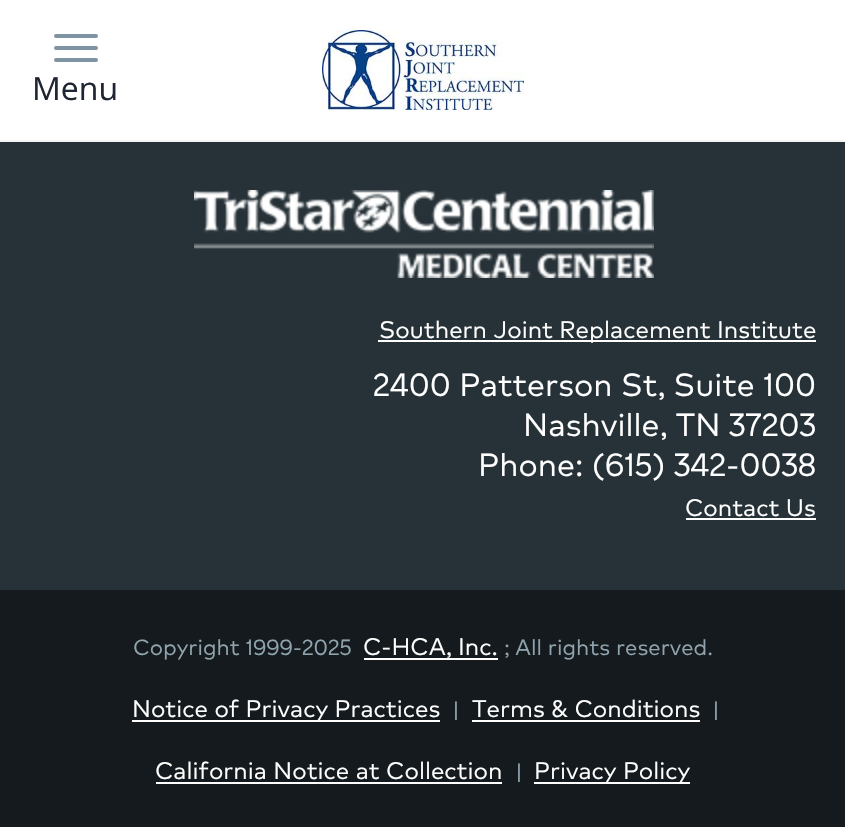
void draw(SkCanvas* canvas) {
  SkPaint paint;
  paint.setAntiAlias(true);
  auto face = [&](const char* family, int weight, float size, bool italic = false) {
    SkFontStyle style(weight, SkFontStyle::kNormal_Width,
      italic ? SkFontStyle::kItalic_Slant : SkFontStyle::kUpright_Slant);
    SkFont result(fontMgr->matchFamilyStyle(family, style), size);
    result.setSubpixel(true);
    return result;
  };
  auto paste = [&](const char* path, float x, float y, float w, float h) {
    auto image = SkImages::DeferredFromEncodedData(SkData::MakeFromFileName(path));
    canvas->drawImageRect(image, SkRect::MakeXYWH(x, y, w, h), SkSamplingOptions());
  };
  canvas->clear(0xffffffff);
  paint.setColor(0xfff5f3f3);
  canvas->drawRect(SkRect::MakeXYWH(0, 140, 845, 2), paint);
  paint.setColor(0xff7f94a2);
  canvas->drawRoundRect(SkRect::MakeXYWH(54, 34, 44, 4), 2, 2, paint);
  canvas->drawRoundRect(SkRect::MakeXYWH(54, 46, 44, 4), 2, 2, paint);
  canvas->drawRoundRect(SkRect::MakeXYWH(54, 58, 44, 4), 2, 2, paint);
  paste("img/1.png", 322, 30, 202, 80);
  paint.setColor(0xff273238);
  canvas->drawRect(SkRect::MakeXYWH(0, 142, 845, 448), paint);
  paste("img/2.png", 194, 190, 460, 88);
  {
    const struct { float x, y, w, h; SkColor color; } items[] = {
      {378, 340, 438, 2, 0xffffffff},
      {686, 518, 130, 2, 0xffffffff},
      {0, 590, 845, 237, 0xff141a1d},
      {364, 658, 134, 2, 0xffffffff},
      {132, 720, 308, 2, 0xffffffff},
      {472, 720, 228, 2, 0xffffffff},
      {156, 782, 346, 2, 0xffffffff},
      {534, 782, 156, 2, 0xffffffff},
    };
    for (auto [x, y, w, h, color] : items) {
      paint.setColor(color);
      canvas->drawRect(SkRect::MakeXYWH(x, y, w, h), paint);
    }
  }
  auto f0 = face("Open Sans", 400, 32);
  paint.setColor(0xff1f2532);
  canvas->drawString("Menu", 32, 100, f0, paint);
  auto f1 = face("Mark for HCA", 400, 24);
  paint.setColor(0xffffffff);
  canvas->drawString("Southern Joint Replacement Institute", 379, 338, f1, paint);
  auto f2 = face("Mark for HCA", 400, 32);
  {
    const struct { const char* s; float x, y; } items[] = {
      {"2400 Patterson St, Suite 100", 373, 396},
      {"Nashville, TN 37203", 523, 436},
      {"Phone: (615) 342-0038", 478, 476},
    };
    for (auto [s, x, y] : items) {
      canvas->drawString(s, x, y, f2, paint);
    }
  }
  canvas->drawString("Contact Us", 685, 516, f1, paint);
  auto f3 = face("Mark for HCA", 400, 22);
  paint.setColor(0xff90a4ae);
  canvas->drawString("Copyright 1999-2025", 133, 655, f3, paint);
  paint.setColor(0xffffffff);
  canvas->drawString("C-HCA, Inc.", 363, 655, f1, paint);
  paint.setColor(0xff90a4ae);
  canvas->drawString("; All rights reserved.", 504, 655, f3, paint);
  paint.setColor(0xffffffff);
  canvas->drawString("Notice of Privacy Practices", 132, 717, f1, paint);
  paint.setColor(0xff90a4ae);
  canvas->drawString("|", 452, 717, f3, paint);
  paint.setColor(0xffffffff);
  canvas->drawString("Terms & Conditions", 472, 717, f1, paint);
  paint.setColor(0xff90a4ae);
  canvas->drawString("|", 712, 717, f3, paint);
  paint.setColor(0xffffffff);
  canvas->drawString("California Notice at Collection", 155, 779, f1, paint);
  paint.setColor(0xff90a4ae);
  canvas->drawString("|", 515, 779, f3, paint);
  paint.setColor(0xffffffff);
  canvas->drawString("Privacy Policy", 534, 779, f1, paint);
}
